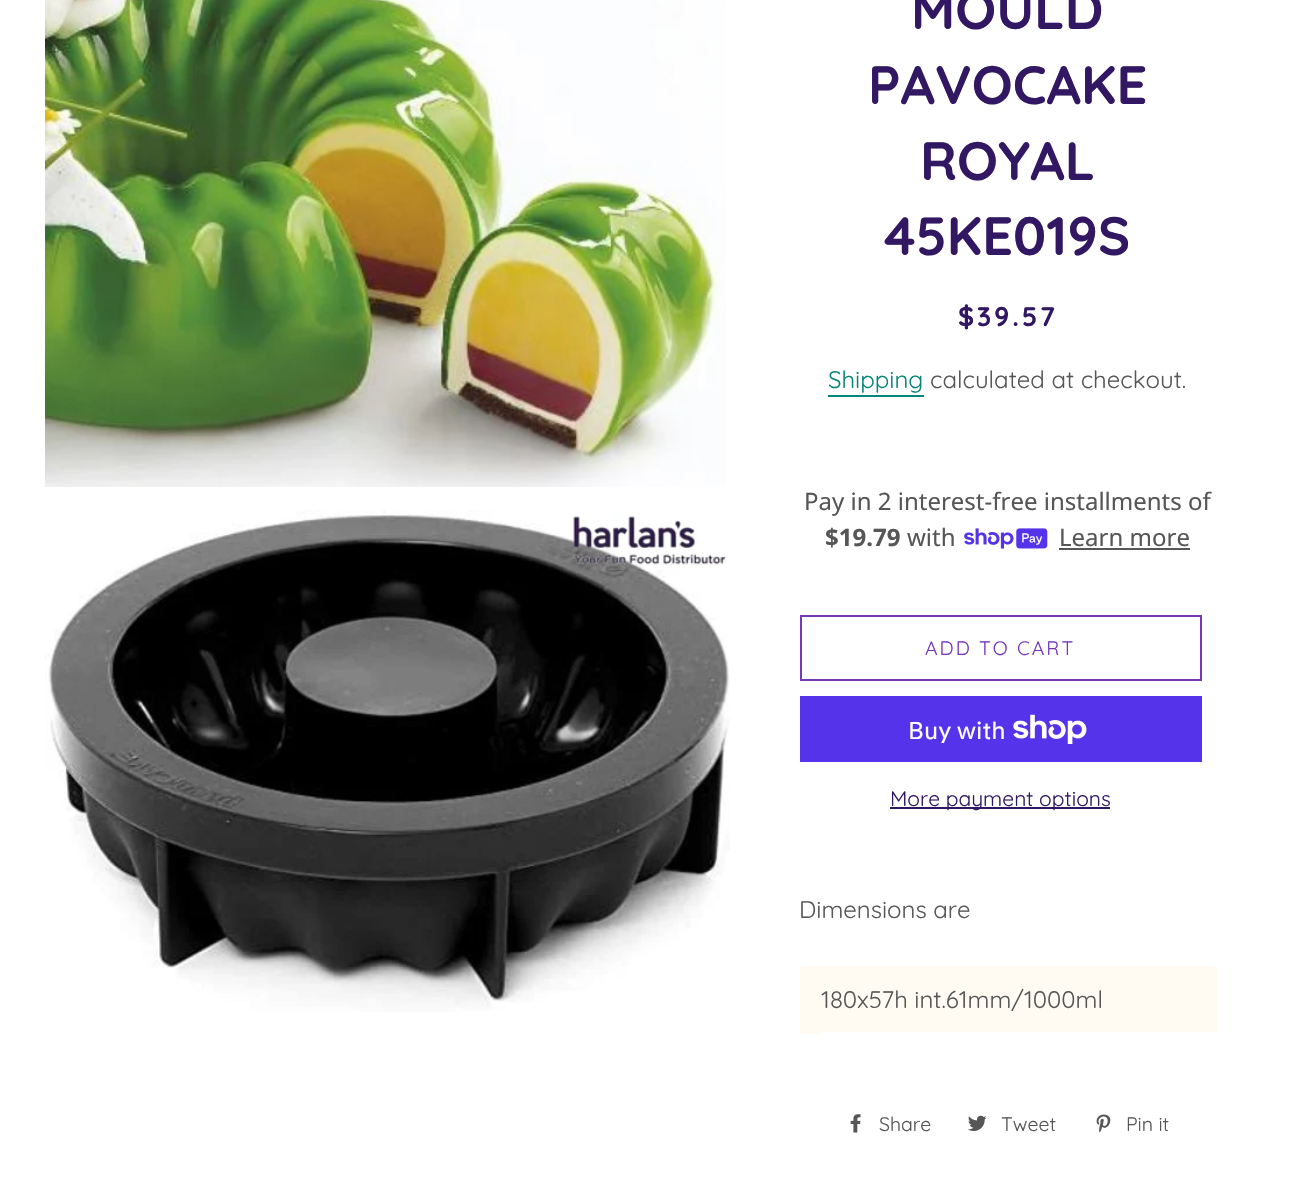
void draw(SkCanvas* canvas) {
  SkPaint paint;
  paint.setAntiAlias(true);
  auto face = [&](const char* family, int weight, float size, bool italic = false) {
    SkFontStyle style(weight, SkFontStyle::kNormal_Width,
      italic ? SkFontStyle::kItalic_Slant : SkFontStyle::kUpright_Slant);
    SkFont result(fontMgr->matchFamilyStyle(family, style), size);
    result.setSubpixel(true);
    return result;
  };
  auto writeSpaced = [&](const char* s, float x, float y, const SkFont& font, const SkPaint& ink, float letter, float word) {
    std::vector<SkGlyphID> glyphs(font.countText(s, strlen(s), SkTextEncoding::kUTF8));
    std::vector<float> xs(glyphs.size());
    font.textToGlyphs(s, strlen(s), SkTextEncoding::kUTF8, glyphs);
    font.getXPos(glyphs, xs, x);
    float extra = 0;
    for (size_t i = 0; i < glyphs.size(); i++) {
      xs[i] += extra;
      extra += letter + word * (glyphs[i] == font.unicharToGlyph(' '));
    }
    canvas->drawTextBlob(SkTextBlob::MakeFromPosHGlyphs(glyphs, xs, y, font), 0, 0, ink);
  };
  auto paste = [&](const char* path, float x, float y, float w, float h) {
    auto image = SkImages::DeferredFromEncodedData(SkData::MakeFromFileName(path));
    canvas->drawImageRect(image, SkRect::MakeXYWH(x, y, w, h), SkSamplingOptions());
  };
  canvas->clear(0xffffffff);
  paste("img/1.png", 45, 0, 681, 487);
  paste("img/2.png", 45, 510, 685, 502);
  paint.setColor(0xff058677);
  canvas->drawRect(SkRect::MakeXYWH(828, 395, 96, 2), paint);
  paste("img/3.png", 964, 528, 84, 21);
  paint.setColor(0xff565656);
  canvas->drawRect(SkRect::MakeXYWH(1059, 548, 131, 2), paint);
  paint.setStroke(true);
  paint.setStrokeWidth(2);
  paint.setColor(0xff7737bd);
  canvas->drawRect(SkRect::MakeXYWH(801, 616, 400, 64), paint);
  paint.setStroke(false);
  paint.setColor(0xff5433eb);
  canvas->drawRect(SkRect::MakeXYWH(800, 696, 402, 66), paint);
  paste("img/4.png", 1013, 714, 74, 30);
  {
    const struct { float x, y, w, h; SkColor color; } items[] = {
      {890, 807, 220, 2, 0xff321863},
      {800, 966, 417, 68, 0xfffffbf2},
      {822, 1032, 395, 2, 0xffffffff},
    };
    for (auto [x, y, w, h, color] : items) {
      paint.setColor(color);
      canvas->drawRect(SkRect::MakeXYWH(x, y, w, h), paint);
    }
  }
  paste("img/5.png", 850, 1114, 11, 19);
  paste("img/6.png", 968, 1115, 19, 16);
  paste("img/7.png", 1096, 1114, 15, 19);
  auto f0 = face("Quicksand", 700, 54);
  paint.setColor(0xff321863);
  {
    const struct { const char* s; float x, y; } items[] = {
      {"MOULD", 911, 29},
      {"PAVOCAKE", 868, 104},
      {"ROYAL", 920, 180},
      {"45KE019S", 884, 255},
    };
    for (auto [s, x, y] : items) {
      canvas->drawString(s, x, y, f0, paint);
    }
  }
  auto f1 = face("Quicksand", 700, 27);
  writeSpaced("$39.57", 958, 326, f1, paint, 2.75f, 0);
  auto f2 = face("Quicksand", 400, 24);
  paint.setColor(0xff058677);
  canvas->drawString("Shipping", 828, 388, f2, paint);
  paint.setColor(0xff565656);
  canvas->drawString("calculated at checkout.", 930, 388, f2, paint);
  auto f3 = face("Noto Sans", 400, 24);
  canvas->drawString("Pay in 2 interest-free installments of", 804, 510, f3, paint);
  auto f4 = face("Noto Sans", 700, 24);
  canvas->drawString("$19.79", 825, 546, f4, paint);
  canvas->drawString("with", 907, 546, f3, paint);
  canvas->drawString("Learn more", 1059, 546, f3, paint);
  auto f5 = face("Quicksand", 400, 19.5f);
  paint.setColor(0xff7737bd);
  writeSpaced("ADD TO CART", 925, 655, f5, paint, 2, 0);
  auto f6 = face("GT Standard", 400, 24);
  paint.setColor(0xffffffff);
  canvas->drawString("Buy with", 908, 739, f6, paint);
  auto f7 = face("Quicksand", 400, 21);
  paint.setColor(0xff321863);
  canvas->drawString("More payment options", 890, 806, f7, paint);
  paint.setColor(0xff565656);
  canvas->drawString("Dimensions are", 799, 918, f2, paint);
  canvas->drawString("180x57h int.61mm/1000ml", 821, 1008, f2, paint);
  {
    const struct { const char* s; float x, y; } items[] = {
      {"Share", 879, 1131},
      {"Tweet", 1001, 1131},
      {"Pin it", 1126, 1131},
    };
    for (auto [s, x, y] : items) {
      canvas->drawString(s, x, y, f5, paint);
    }
  }
}
